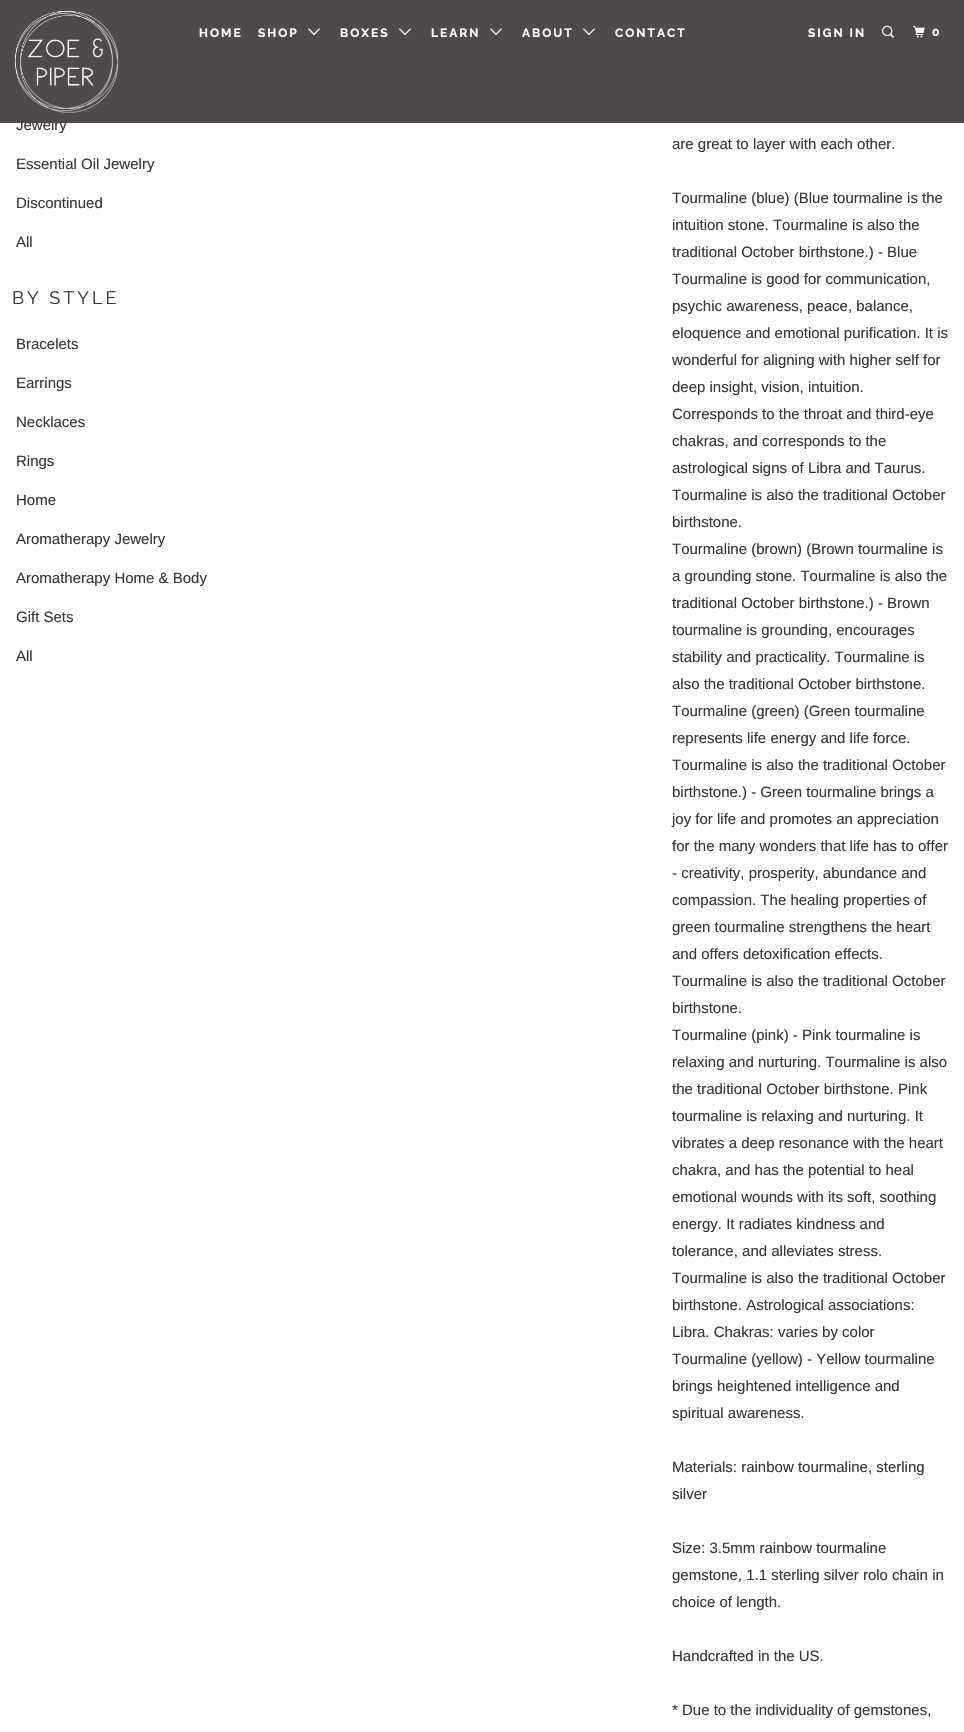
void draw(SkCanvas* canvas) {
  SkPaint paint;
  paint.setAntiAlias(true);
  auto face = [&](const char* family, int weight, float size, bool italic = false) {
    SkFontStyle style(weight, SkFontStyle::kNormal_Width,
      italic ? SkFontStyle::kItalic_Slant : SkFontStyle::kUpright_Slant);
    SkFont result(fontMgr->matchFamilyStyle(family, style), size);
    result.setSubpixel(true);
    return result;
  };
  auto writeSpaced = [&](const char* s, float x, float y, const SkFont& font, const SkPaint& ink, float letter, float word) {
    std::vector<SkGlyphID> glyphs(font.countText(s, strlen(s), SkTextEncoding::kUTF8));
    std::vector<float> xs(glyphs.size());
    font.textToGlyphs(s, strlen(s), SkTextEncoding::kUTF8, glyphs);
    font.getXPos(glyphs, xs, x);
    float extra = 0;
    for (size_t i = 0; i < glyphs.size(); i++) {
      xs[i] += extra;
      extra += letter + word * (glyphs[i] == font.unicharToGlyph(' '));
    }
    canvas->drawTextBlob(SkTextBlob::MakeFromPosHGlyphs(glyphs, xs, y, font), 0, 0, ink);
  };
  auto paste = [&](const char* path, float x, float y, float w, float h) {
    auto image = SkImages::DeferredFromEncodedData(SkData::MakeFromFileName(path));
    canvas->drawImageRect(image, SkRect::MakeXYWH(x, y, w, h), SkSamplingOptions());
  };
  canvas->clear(0xffffffff);
  auto f0 = face("Liberation Sans", 400, 15);
  paint.setColor(0xff363636);
  canvas->drawString("Jewelry", 16, 130, f0, paint);
  paint.setColor(0xff50494b);
  canvas->drawRect(SkRect::MakeXYWH(0, 0, 964, 123), paint);
  paste("img/2.png", 583, 28, 12, 8);
  auto f1 = face("Raleway", 700, 12);
  paint.setColor(0xffffffff);
  writeSpaced("ABOUT", 522, 37, f1, paint, 2, 0);
  paste("img/2.png", 490, 28, 12, 8);
  writeSpaced("LEARN", 431, 37, f1, paint, 2, 0);
  paste("img/2.png", 399, 28, 12, 8);
  writeSpaced("BOXES", 340, 37, f1, paint, 2, 0);
  paste("img/2.png", 308, 28, 12, 8);
  {
    const struct { const char* s; float x, y; } items[] = {
      {"SHOP", 258, 37},
      {"CONTACT", 615, 37},
      {"HOME", 199, 37},
      {"0", 932, 36},
    };
    for (auto [s, x, y] : items) {
      writeSpaced(s, x, y, f1, paint, 2, 0);
    }
  }
  paste("img/4.png", 913, 26, 12, 12);
  paste("img/3.png", 882, 25, 12, 13);
  writeSpaced("SIGN IN", 808, 37, f1, paint, 2, 0);
  paste("img/1.png", 14, 11, 105, 102);
  paint.setColor(0xff363636);
  {
    const struct { const char* s; float x, y; } items[] = {
      {"Essential Oil Jewelry", 16, 169},
      {"Discontinued", 16, 208},
      {"All", 16, 247},
    };
    for (auto [s, x, y] : items) {
      canvas->drawString(s, x, y, f0, paint);
    }
  }
  auto f2 = face("Raleway", 400, 18);
  writeSpaced("BY STYLE", 12, 304, f2, paint, 3, 0);
  {
    const struct { const char* s; float x, y; } items[] = {
      {"Bracelets", 16, 349},
      {"Earrings", 16, 388},
      {"Necklaces", 16, 427},
      {"Rings", 16, 466},
      {"Home", 16, 505},
      {"Aromatherapy Jewelry", 16, 544},
      {"Aromatherapy Home & Body", 16, 583},
      {"Gift Sets", 16, 622},
      {"All", 16, 661},
      {"are great to layer with each other.", 672, 149},
      {"Tourmaline (blue) (Blue tourmaline is the", 672, 203},
      {"intuition stone. Tourmaline is also the", 672, 230},
      {"traditional October birthstone.) - Blue", 672, 257},
      {"Tourmaline is good for communication,", 672, 284},
      {"psychic awareness, peace, balance,", 672, 311},
      {"eloquence and emotional purification. It is", 672, 338},
      {"wonderful for aligning with higher self for", 672, 365},
      {"deep insight, vision, intuition.", 672, 392},
      {"Corresponds to the throat and third-eye", 672, 419},
      {"chakras, and corresponds to the", 672, 446},
      {"astrological signs of Libra and Taurus.", 672, 473},
      {"Tourmaline is also the traditional October", 672, 500},
      {"birthstone.", 672, 527},
      {"Tourmaline (brown) (Brown tourmaline is", 672, 554},
      {"a grounding stone. Tourmaline is also the", 672, 581},
      {"traditional October birthstone.) - Brown", 672, 608},
      {"tourmaline is grounding, encourages", 672, 635},
      {"stability and practicality. Tourmaline is", 672, 662},
      {"also the traditional October birthstone.", 672, 689},
      {"Tourmaline (green) (Green tourmaline", 672, 716},
      {"represents life energy and life force.", 672, 743},
      {"Tourmaline is also the traditional October", 672, 770},
      {"birthstone.) - Green tourmaline brings a", 672, 797},
      {"joy for life and promotes an appreciation", 672, 824},
      {"for the many wonders that life has to offer", 672, 851},
      {"- creativity, prosperity, abundance and", 672, 878},
      {"compassion. The healing properties of", 672, 905},
      {"green tourmaline strengthens the heart", 672, 932},
      {"and offers detoxification effects.", 672, 959},
      {"Tourmaline is also the traditional October", 672, 986},
      {"birthstone.", 672, 1013},
      {"Tourmaline (pink) - Pink tourmaline is", 672, 1040},
      {"relaxing and nurturing. Tourmaline is also", 672, 1067},
      {"the traditional October birthstone. Pink", 672, 1094},
      {"tourmaline is relaxing and nurturing. It", 672, 1121},
      {"vibrates a deep resonance with the heart", 672, 1148},
      {"chakra, and has the potential to heal", 672, 1175},
      {"emotional wounds with its soft, soothing", 672, 1202},
      {"energy. It radiates kindness and", 672, 1229},
      {"tolerance, and alleviates stress.", 672, 1256},
      {"Tourmaline is also the traditional October", 672, 1283},
      {"birthstone. Astrological associations:", 672, 1310},
      {"Libra. Chakras: varies by color", 672, 1337},
      {"Tourmaline (yellow) - Yellow tourmaline", 672, 1364},
      {"brings heightened intelligence and", 672, 1391},
      {"spiritual awareness.", 672, 1418},
      {"Materials: rainbow tourmaline, sterling", 672, 1472},
      {"silver", 672, 1499},
      {"Size: 3.5mm rainbow tourmaline", 672, 1553},
      {"gemstone, 1.1 sterling silver rolo chain in", 672, 1580},
      {"choice of length.", 672, 1607},
      {"Handcrafted in the US.", 672, 1661},
      {"* Due to the individuality of gemstones,", 672, 1715},
    };
    for (auto [s, x, y] : items) {
      canvas->drawString(s, x, y, f0, paint);
    }
  }
}
